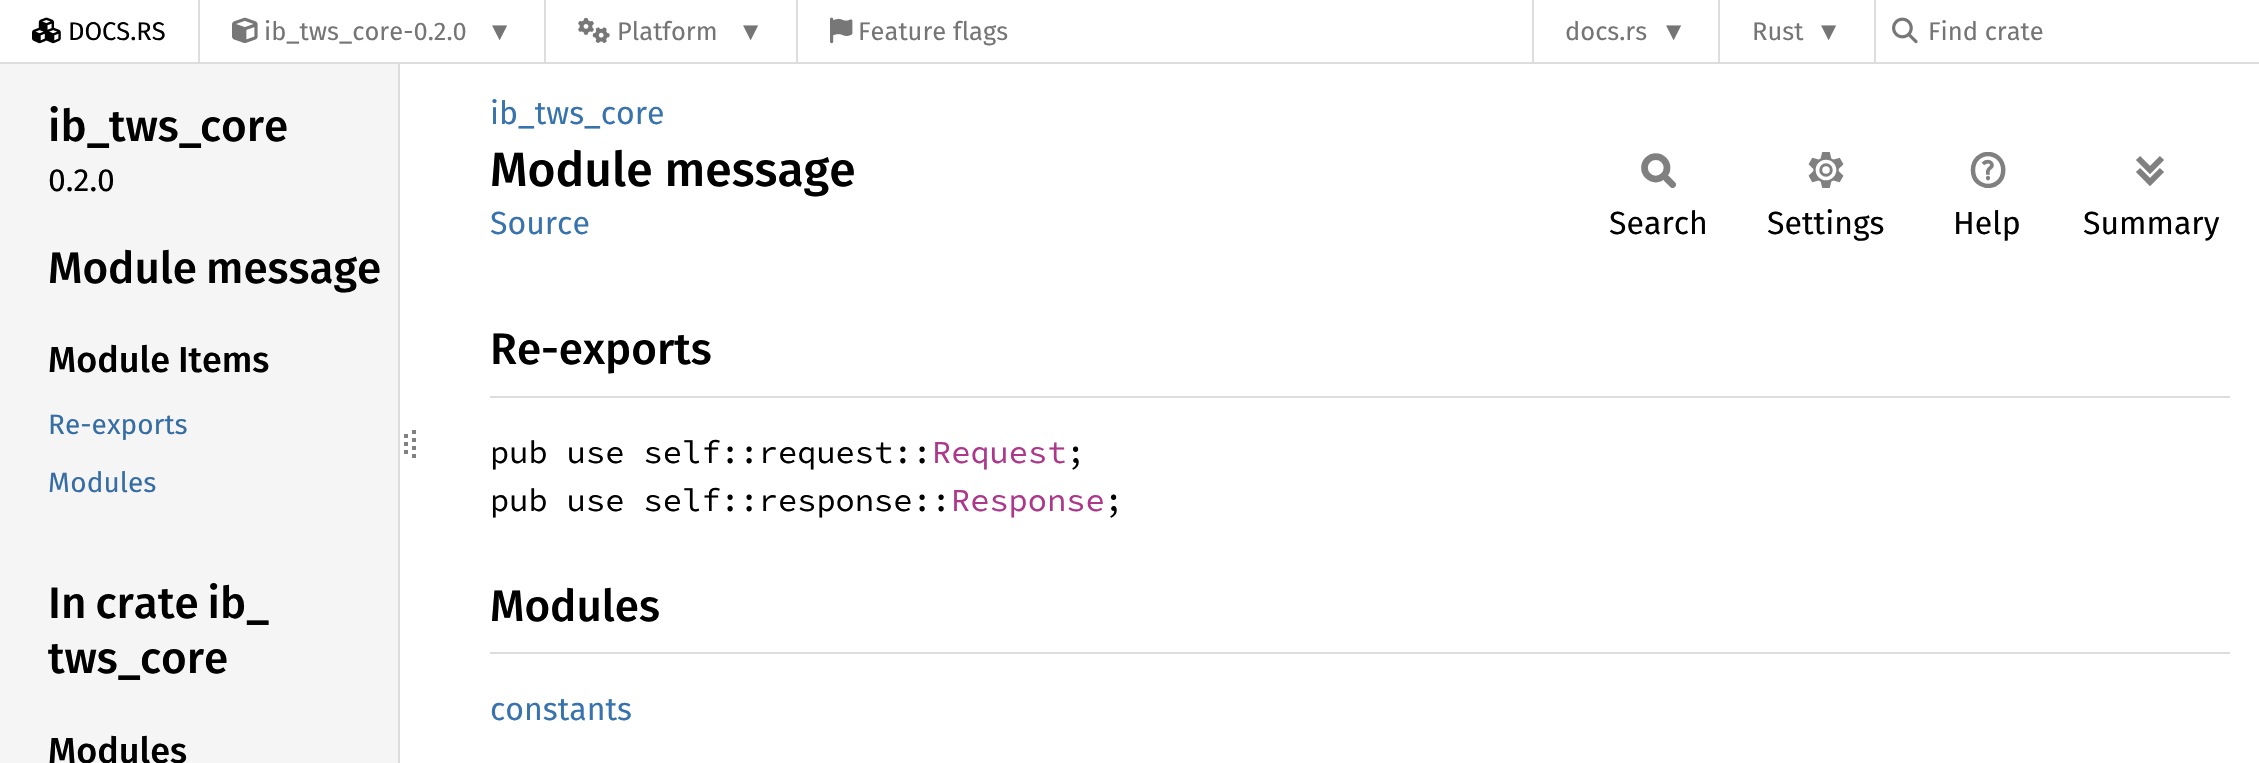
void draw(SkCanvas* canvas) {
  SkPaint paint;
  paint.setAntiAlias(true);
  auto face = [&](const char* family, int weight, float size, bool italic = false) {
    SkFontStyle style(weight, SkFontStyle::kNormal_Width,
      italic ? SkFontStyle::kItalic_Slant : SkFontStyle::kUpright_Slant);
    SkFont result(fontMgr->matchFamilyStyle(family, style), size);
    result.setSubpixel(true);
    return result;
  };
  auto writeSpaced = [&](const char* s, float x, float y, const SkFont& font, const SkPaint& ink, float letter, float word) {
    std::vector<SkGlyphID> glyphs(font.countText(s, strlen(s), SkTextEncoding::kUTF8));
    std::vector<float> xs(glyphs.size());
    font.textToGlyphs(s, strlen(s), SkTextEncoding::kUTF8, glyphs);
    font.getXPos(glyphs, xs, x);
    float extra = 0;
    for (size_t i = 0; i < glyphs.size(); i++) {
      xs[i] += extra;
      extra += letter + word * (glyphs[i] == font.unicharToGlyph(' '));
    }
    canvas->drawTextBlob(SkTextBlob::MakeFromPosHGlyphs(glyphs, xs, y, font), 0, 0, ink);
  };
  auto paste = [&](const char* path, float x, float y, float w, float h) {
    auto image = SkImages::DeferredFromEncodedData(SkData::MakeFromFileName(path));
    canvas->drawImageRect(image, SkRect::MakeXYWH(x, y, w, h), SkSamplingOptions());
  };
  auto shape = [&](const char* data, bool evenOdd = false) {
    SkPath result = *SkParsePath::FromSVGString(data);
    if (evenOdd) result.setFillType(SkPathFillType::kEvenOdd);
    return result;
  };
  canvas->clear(0xffffffff);
  paint.setColor(0xffdddddd);
  canvas->drawRect(SkRect::MakeXYWH(0, 62, 2259, 2), paint);
  paste("img/1.png", 32, 17, 29, 27);
  canvas->drawRect(SkRect::MakeXYWH(198, 0, 2, 62), paint);
  paste("img/2.png", 232, 17, 26, 27);
  canvas->drawRect(SkRect::MakeXYWH(544, 0, 2, 62), paint);
  paste("img/3.png", 578, 18, 32, 25);
  canvas->drawRect(SkRect::MakeXYWH(796, 0, 2, 62), paint);
  paste("img/4.png", 830, 17, 23, 27);
  {
    const struct { float x, y, w, h; SkColor color; } items[] = {
      {1532, 0, 2, 62, 0xffdddddd},
      {1718, 0, 2, 62, 0xffdddddd},
      {1874, 0, 2, 62, 0xffdddddd},
    };
    for (auto [x, y, w, h, color] : items) {
      paint.setColor(color);
      canvas->drawRect(SkRect::MakeXYWH(x, y, w, h), paint);
    }
  }
  paste("img/5.png", 1892, 17, 26, 27);
  paint.setColor(0xfff5f5f5);
  canvas->drawRect(SkRect::MakeXYWH(0, 64, 398, 699), paint);
  paint.setColor(0xffdddddd);
  canvas->drawRect(SkRect::MakeXYWH(398, 64, 2, 699), paint);
  paint.setStroke(true);
  paint.setStrokeWidth(4);
  paint.setColor(0xff808080);
  canvas->drawPath(shape("M406 434V438M406 442V446M406 450V454"), paint);
  paint.setPathEffect(SkDashPathEffect::Make({{4, 4}}, 0));
  canvas->drawPath(shape("M414 430V462"), paint);
  paint.setPathEffect(nullptr);
  paste("img/6.png", 1641, 153, 35, 35);
  paste("img/7.png", 1808, 152, 36, 36);
  paste("img/8.png", 1970, 152, 36, 36);
  paste("img/9.png", 2136, 156, 28, 31);
  paint.setStroke(false);
  paint.setColor(0xffdddddd);
  canvas->drawRect(SkRect::MakeXYWH(490, 396, 1740, 2), paint);
  canvas->drawRect(SkRect::MakeXYWH(490, 652, 1740, 2), paint);
  auto f0 = face("Fira Sans", 400, 25.5f);
  paint.setColor(0xff000000);
  canvas->drawString("DOCS.RS", 68, 40, f0, paint);
  paint.setColor(0xff757575);
  canvas->drawString("ib_tws_core-0.2.0", 264, 40, f0, paint);
  auto f1 = face("Liberation Sans", 400, 25.5f);
  canvas->drawString("▼", 487, 40, f1, paint);
  canvas->drawString("Platform", 617, 40, f0, paint);
  canvas->drawString("▼", 738, 40, f1, paint);
  canvas->drawString("Feature flags", 858, 40, f0, paint);
  canvas->drawString("docs.rs", 1565, 40, f0, paint);
  canvas->drawString("▼", 1661, 40, f1, paint);
  canvas->drawString("Rust", 1752, 40, f0, paint);
  canvas->drawString("▼", 1816, 40, f1, paint);
  canvas->drawString("Find crate", 1928, 40, f0, paint);
  auto f2 = face("Fira Sans", 500, 44);
  paint.setColor(0xff000000);
  {
    const struct { const char* s; float x, y; } items[] = {
      {"ib_", 48, 141},
      {"tws_", 109, 141},
      {"core", 200, 141},
    };
    for (auto [s, x, y] : items) {
      canvas->drawString(s, x, y, f2, paint);
    }
  }
  auto f3 = face("Fira Sans", 400, 32);
  canvas->drawString("0.2.0", 48, 191, f3, paint);
  writeSpaced("Module message", 48, 283, f2, paint, 0, -2);
  auto f4 = face("Fira Sans", 500, 36);
  writeSpaced("Module Items", 48, 372, f4, paint, 0, -1);
  auto f5 = face("Fira Sans", 400, 28);
  paint.setColor(0xff356da4);
  canvas->drawString("Re-exports", 48, 434, f5, paint);
  canvas->drawString("Modules", 48, 492, f5, paint);
  paint.setColor(0xff000000);
  writeSpaced("In crate ib_", 48, 618, f2, paint, 0, -2);
  canvas->drawString("tws_", 48, 673, f2, paint);
  canvas->drawString("core", 140, 673, f2, paint);
  canvas->drawString("Modules", 48, 763, f4, paint);
  paint.setColor(0xff3873ad);
  canvas->drawString("ib_tws_core", 490, 124, f3, paint);
  auto f6 = face("Fira Sans", 500, 48);
  paint.setColor(0xff000000);
  canvas->drawString("Module message", 490, 186, f6, paint);
  paint.setColor(0xff3873ad);
  canvas->drawString("Source", 490, 234, f3, paint);
  paint.setColor(0xff000000);
  {
    const struct { const char* s; float x, y; } items[] = {
      {"Search", 1609, 234},
      {"Settings", 1767, 234},
      {"Help", 1953, 234},
      {"Summary", 2083, 234},
    };
    for (auto [s, x, y] : items) {
      canvas->drawString(s, x, y, f3, paint);
    }
  }
  canvas->drawString("Re-exports", 490, 364, f2, paint);
  auto f7 = face("Source Code Pro", 400, 32);
  canvas->drawString("pub use self::request::", 490, 463, f7, paint);
  paint.setColor(0xffad378a);
  canvas->drawString("Request", 932, 463, f7, paint);
  paint.setColor(0xff000000);
  canvas->drawString(";", 1066, 463, f7, paint);
  canvas->drawString("pub use self::response::", 490, 511, f7, paint);
  paint.setColor(0xffad378a);
  canvas->drawString("Response", 951, 511, f7, paint);
  paint.setColor(0xff000000);
  canvas->drawString(";", 1104, 511, f7, paint);
  canvas->drawString("Modules", 490, 621, f2, paint);
  paint.setColor(0xff3873ad);
  canvas->drawString("constants", 490, 720, f3, paint);
}
